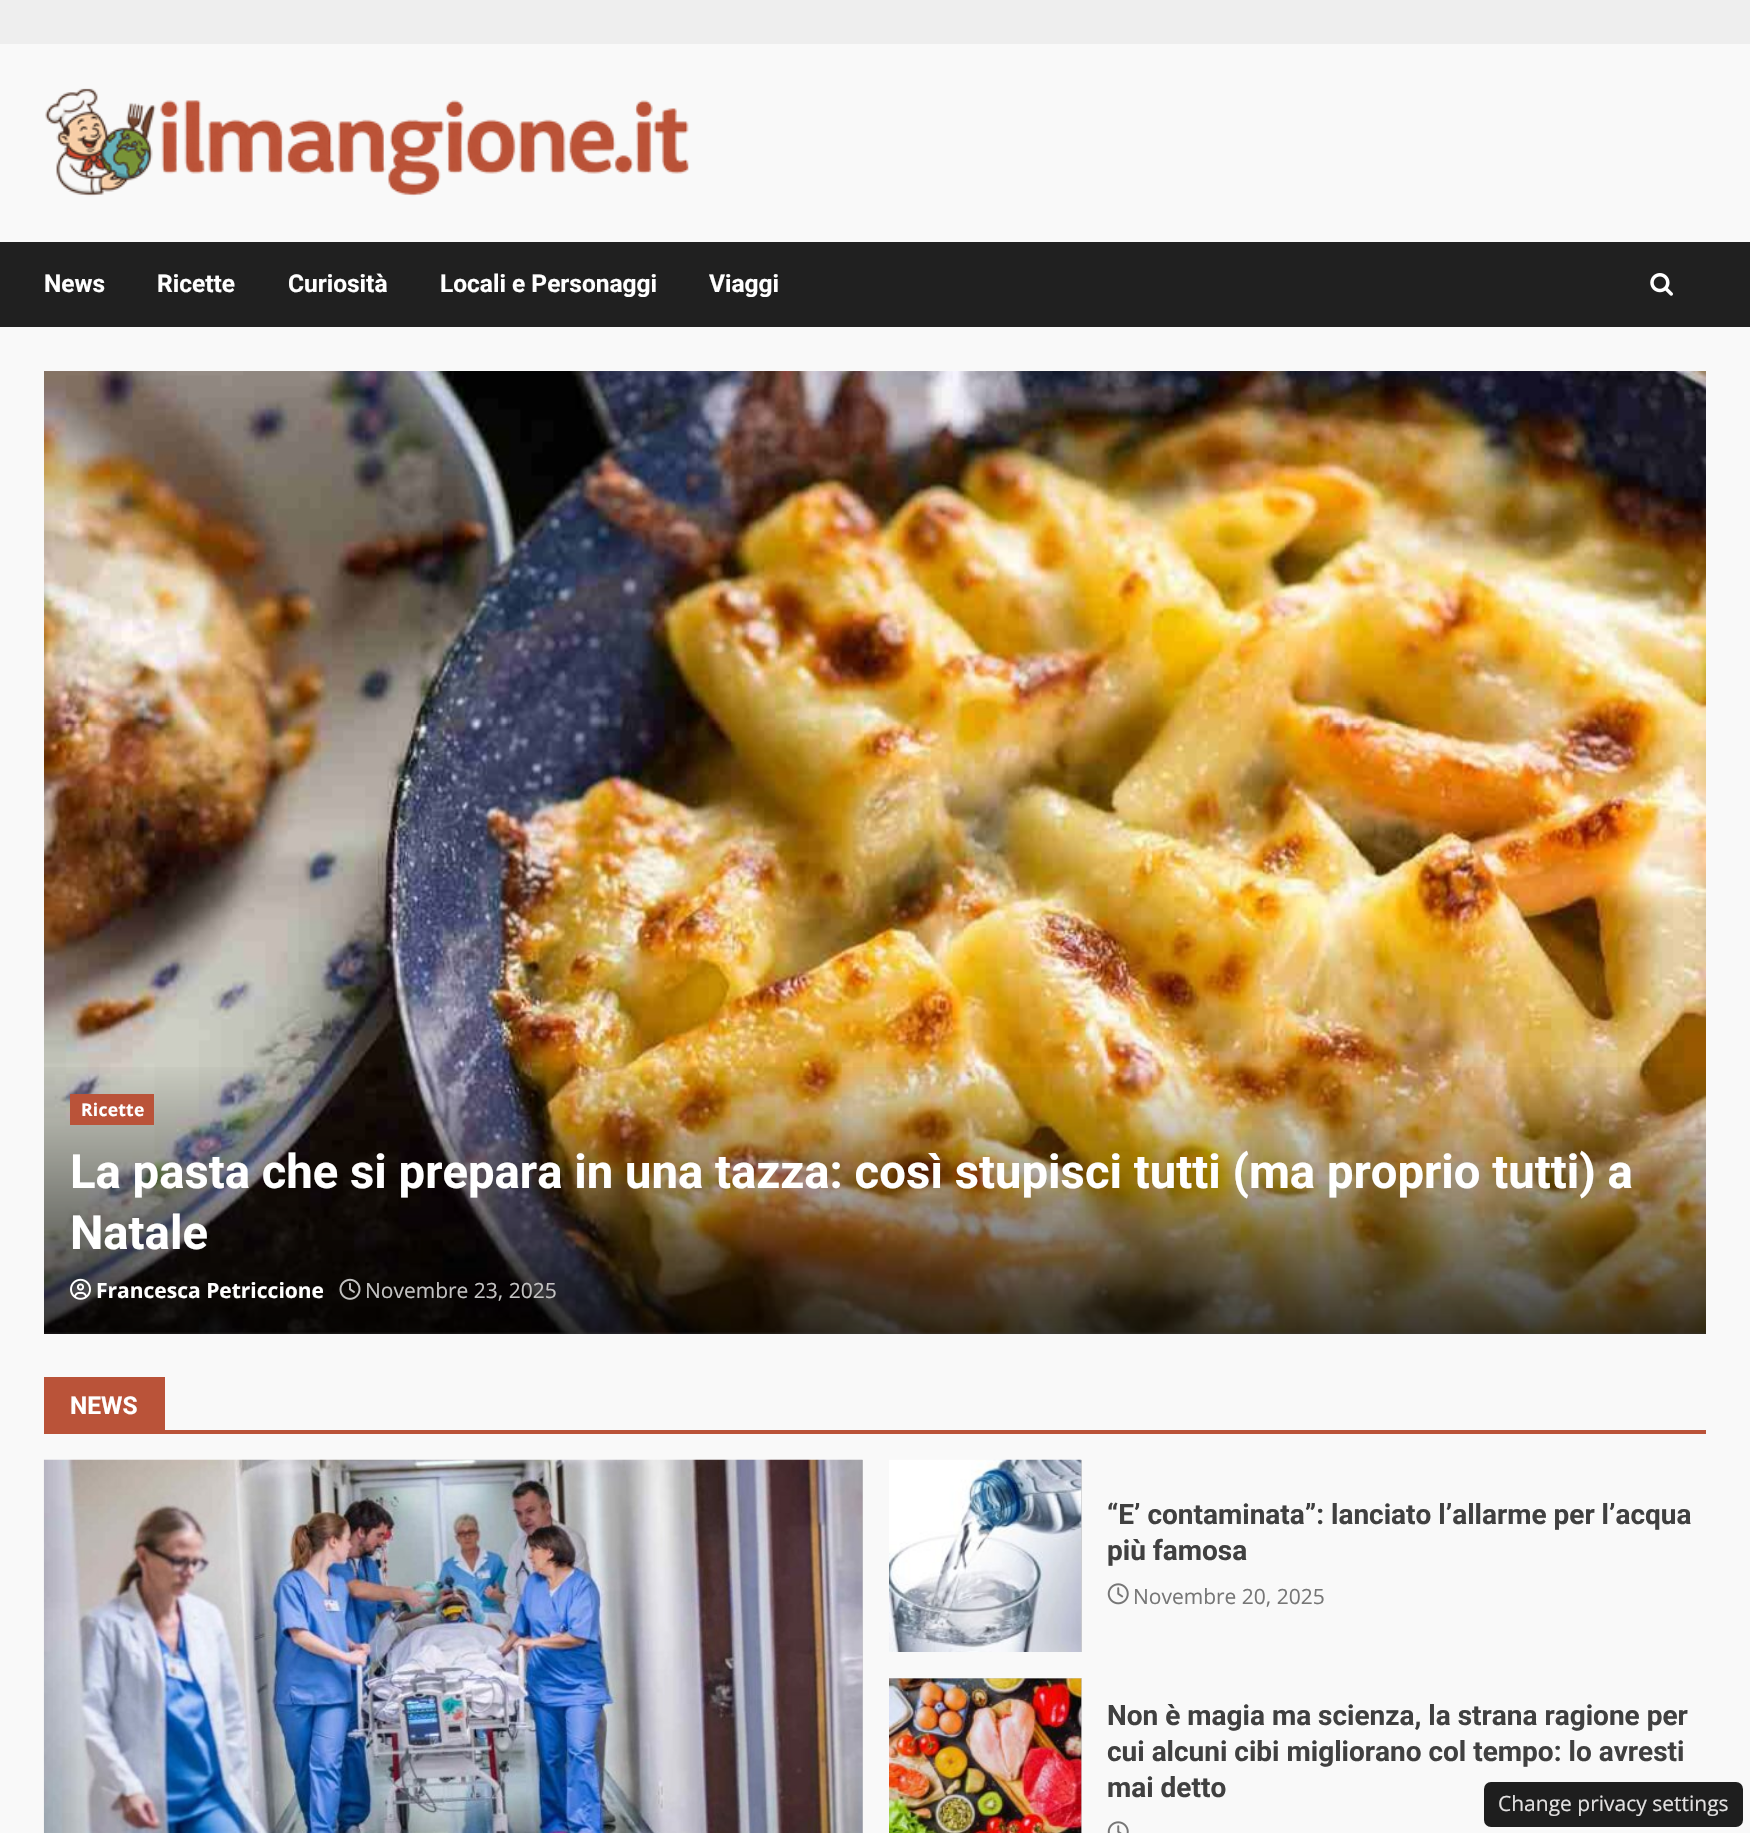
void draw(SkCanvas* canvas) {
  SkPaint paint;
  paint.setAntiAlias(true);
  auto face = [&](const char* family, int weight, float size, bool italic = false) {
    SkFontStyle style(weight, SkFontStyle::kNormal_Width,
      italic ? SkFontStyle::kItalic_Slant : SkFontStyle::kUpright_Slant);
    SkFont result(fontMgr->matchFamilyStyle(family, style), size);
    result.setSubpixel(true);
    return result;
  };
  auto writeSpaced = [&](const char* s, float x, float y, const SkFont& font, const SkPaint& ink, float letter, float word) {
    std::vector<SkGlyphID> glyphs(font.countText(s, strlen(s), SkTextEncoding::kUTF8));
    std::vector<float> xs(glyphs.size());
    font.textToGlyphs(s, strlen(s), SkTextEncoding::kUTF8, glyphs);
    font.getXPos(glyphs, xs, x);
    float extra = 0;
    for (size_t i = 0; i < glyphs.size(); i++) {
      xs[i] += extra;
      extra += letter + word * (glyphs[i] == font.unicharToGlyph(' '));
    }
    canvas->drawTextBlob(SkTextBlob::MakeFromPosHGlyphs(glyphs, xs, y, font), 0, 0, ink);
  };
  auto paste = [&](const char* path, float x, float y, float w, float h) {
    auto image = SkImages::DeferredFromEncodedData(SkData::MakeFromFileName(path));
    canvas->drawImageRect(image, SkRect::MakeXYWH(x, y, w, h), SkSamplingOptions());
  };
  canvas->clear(0xffeeeeee);
  paint.setColor(0xfff9f9f9);
  canvas->drawRect(SkRect::MakeXYWH(0, 44, 1750, 1789), paint);
  paste("img/1.png", 45, 88, 644, 109);
  paint.setColor(0xff202020);
  canvas->drawRect(SkRect::MakeXYWH(0, 242, 1750, 85), paint);
  paste("img/2.png", 1650, 273, 23, 23);
  paste("img/3.png", 44, 371, 1662, 963);
  {
    const SkColor colors[] = {0x00000000, 0xbf000000};
    const float stops[] = {0, 1};
    const SkPoint ends[] = {{875, 1059}, {875, 1334}};
    paint.setShader(SkGradientShader::MakeLinear(ends, colors, stops, 2, SkTileMode::kClamp));
    paint.setAlpha(255);
  }
  canvas->drawRect(SkRect::MakeXYWH(44, 1067, 1662, 267), paint);
  paint.setShader(nullptr);
  paint.setColor(0xffba5339);
  canvas->drawRect(SkRect::MakeXYWH(70, 1094, 84, 31), paint);
  paste("img/4.png", 70, 1278, 21, 22);
  paste("img/5.png", 339, 1278, 22, 22);
  {
    const struct { float x, y, w, h; SkColor color; } items[] = {
      {44, 1430, 1662, 4, 0xffba5339},
      {44, 1377, 121, 53, 0xffba5339},
      {862, 1460, 1, 373, 0xffcccccc},
    };
    for (auto [x, y, w, h, color] : items) {
      paint.setColor(color);
      canvas->drawRect(SkRect::MakeXYWH(x, y, w, h), paint);
    }
  }
  paste("img/6.png", 43, 1459, 820, 374);
  canvas->drawRect(SkRect::MakeXYWH(1081, 1460, 1, 192), paint);
  paste("img/7.png", 889, 1459, 193, 193);
  paste("img/8.png", 1107, 1583, 22, 22);
  canvas->drawRect(SkRect::MakeXYWH(889, 1678, 193, 155), paint);
  paste("img/9.png", 889, 1678, 193, 155);
  paste("img/10.png", 1107, 1821, 22, 12);
  paint.setColor(0xff1e1e1e);
  canvas->drawRoundRect(SkRect::MakeXYWH(1484, 1782, 259, 45), 7, 7, paint);
  auto f0 = face("Roboto", 700, 24.5f);
  paint.setColor(0xffffffff);
  {
    const struct { const char* s; float x, y; } items[] = {
      {"News", 44, 292},
      {"Ricette", 157, 292},
      {"Curiosità", 288, 292},
      {"Locali e Personaggi", 440, 292},
      {"Viaggi", 709, 292},
    };
    for (auto [s, x, y] : items) {
      canvas->drawString(s, x, y, f0, paint);
    }
  }
  auto f1 = face("Open Sans", 700, 17.5f);
  writeSpaced("Ricette", 81, 1116, f1, paint, 0.25f, 0);
  auto f2 = face("Roboto", 700, 47.25f);
  canvas->drawString("La pasta che si prepara in una tazza: così stupisci tutti (ma proprio tutti) a", 70, 1188, f2, paint);
  canvas->drawString("Natale", 70, 1249, f2, paint);
  auto f3 = face("Open Sans", 700, 21);
  canvas->drawString("Francesca Petriccione", 96, 1298, f3, paint);
  auto f4 = face("Open Sans", 400, 21);
  paint.setColor(0xffc3c2c2);
  canvas->drawString("Novembre 23, 2025", 365, 1298, f4, paint);
  paint.setColor(0xffffffff);
  canvas->drawString("NEWS", 70, 1414, f0, paint);
  auto f5 = face("Roboto", 700, 28);
  paint.setColor(0xff404040);
  canvas->drawString("“E’ contaminata”: lanciato l’allarme per l’acqua", 1107, 1524, f5, paint);
  canvas->drawString("più famosa", 1107, 1560, f5, paint);
  paint.setColor(0xff767676);
  canvas->drawString("Novembre 20, 2025", 1133, 1604, f4, paint);
  paint.setColor(0xff404040);
  {
    const struct { const char* s; float x, y; } items[] = {
      {"Non è magia ma scienza, la strana ragione per", 1107, 1725},
      {"cui alcuni cibi migliorano col tempo: lo avresti", 1107, 1761},
      {"mai detto", 1107, 1797},
    };
    for (auto [s, x, y] : items) {
      canvas->drawString(s, x, y, f5, paint);
    }
  }
  paint.setColor(0xffe3e1e1);
  canvas->drawString("Change privacy settings", 1498, 1811, f4, paint);
}
